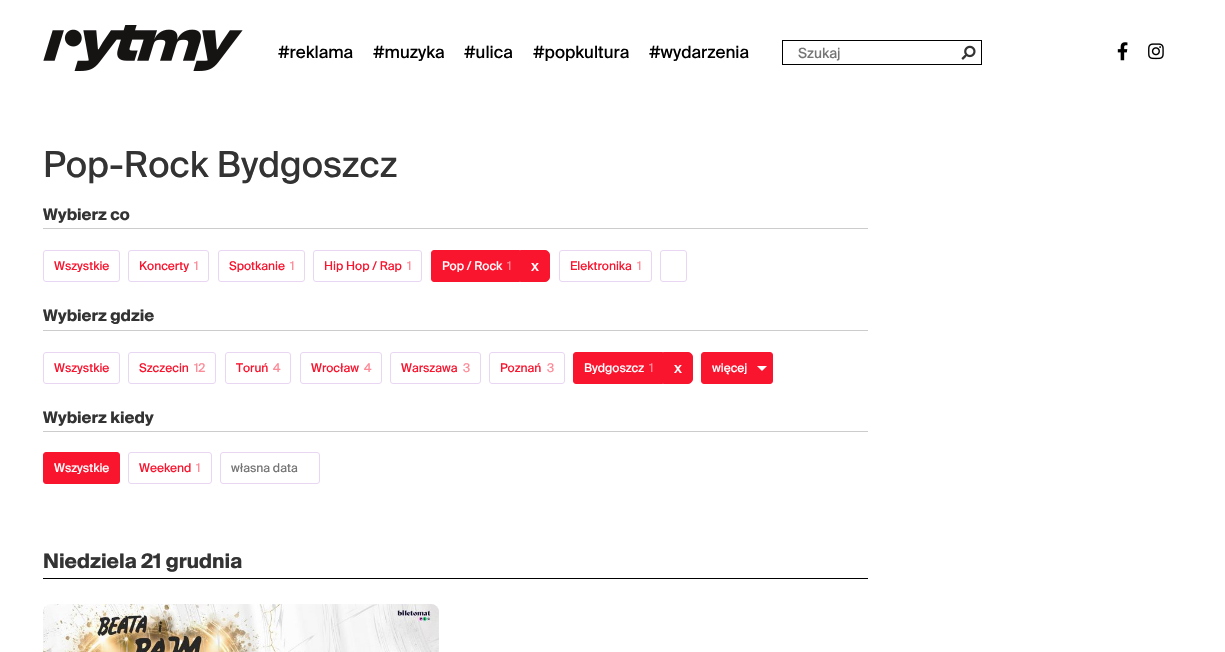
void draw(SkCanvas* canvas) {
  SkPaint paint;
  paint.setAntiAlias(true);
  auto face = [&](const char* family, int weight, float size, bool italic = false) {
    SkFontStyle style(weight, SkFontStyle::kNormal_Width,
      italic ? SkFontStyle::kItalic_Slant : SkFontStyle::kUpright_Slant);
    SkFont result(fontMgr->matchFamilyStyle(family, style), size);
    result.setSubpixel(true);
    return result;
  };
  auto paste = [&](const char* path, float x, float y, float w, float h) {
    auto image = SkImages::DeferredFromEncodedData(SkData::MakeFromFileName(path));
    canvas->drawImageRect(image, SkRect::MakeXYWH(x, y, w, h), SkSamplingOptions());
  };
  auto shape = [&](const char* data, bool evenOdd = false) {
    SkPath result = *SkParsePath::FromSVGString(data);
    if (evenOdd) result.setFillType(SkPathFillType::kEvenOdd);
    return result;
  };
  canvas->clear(0xffffffff);
  paste("img/1.png", 43, 25, 200, 46);
  paint.setStroke(true);
  paint.setStrokeWidth(1);
  paint.setColor(0xff000000);
  canvas->drawRect(SkRect::MakeXYWH(782.5f, 40.5f, 199, 24), paint);
  paste("img/2.png", 961, 45, 15, 15);
  paste("img/3.png", 1117, 42, 11, 19);
  paste("img/4.png", 1148, 43, 16, 17);
  paint.setStroke(false);
  paint.setColor(0xffcccccc);
  canvas->drawRect(SkRect::MakeXYWH(43, 228, 825, 1), paint);
  paint.setStroke(true);
  paint.setColor(0xffe9d6f3);
  canvas->drawRoundRect(SkRect::MakeXYWH(43.5f, 250.5f, 76, 31), 2.5f, 2.5f, paint);
  canvas->drawRoundRect(SkRect::MakeXYWH(128.5f, 250.5f, 80, 31), 2.5f, 2.5f, paint);
  canvas->drawRoundRect(SkRect::MakeXYWH(218.5f, 250.5f, 86, 31), 2.5f, 2.5f, paint);
  canvas->drawRoundRect(SkRect::MakeXYWH(313.5f, 250.5f, 108, 31), 2.5f, 2.5f, paint);
  paint.setStroke(false);
  paint.setColor(0xfffa152f);
  canvas->drawRoundRect(SkRect::MakeXYWH(431.5f, 250.5f, 90, 31), 2.5f, 2.5f, paint);
  paint.setStroke(true);
  canvas->drawRoundRect(SkRect::MakeXYWH(431.5f, 250.5f, 90, 31), 2.5f, 2.5f, paint);
  paint.setStroke(false);
  canvas->drawPath(shape("M520.5 250.5H545C547.5 250.5 549.5 252.5 549.5 255V277C549.5 279.5 547.5 281.5 545 281.5H520.5Z"), paint);
  paint.setStroke(true);
  canvas->drawPath(shape("M520.5 250.5H545C547.5 250.5 549.5 252.5 549.5 255V277C549.5 279.5 547.5 281.5 545 281.5H520.5Z"), paint);
  paint.setColor(0xffe9d6f3);
  canvas->drawRoundRect(SkRect::MakeXYWH(559.5f, 250.5f, 92, 31), 2.5f, 2.5f, paint);
  canvas->drawRoundRect(SkRect::MakeXYWH(660.5f, 250.5f, 26, 31), 2.5f, 2.5f, paint);
  paint.setStroke(false);
  paint.setColor(0xffcccccc);
  canvas->drawRect(SkRect::MakeXYWH(43, 330, 825, 1), paint);
  paint.setStroke(true);
  paint.setColor(0xffe9d6f3);
  canvas->drawRoundRect(SkRect::MakeXYWH(43.5f, 352.5f, 76, 31), 2.5f, 2.5f, paint);
  canvas->drawRoundRect(SkRect::MakeXYWH(128.5f, 352.5f, 87, 31), 2.5f, 2.5f, paint);
  canvas->drawRoundRect(SkRect::MakeXYWH(225.5f, 352.5f, 65, 31), 2.5f, 2.5f, paint);
  canvas->drawRoundRect(SkRect::MakeXYWH(300.5f, 352.5f, 81, 31), 2.5f, 2.5f, paint);
  canvas->drawRoundRect(SkRect::MakeXYWH(390.5f, 352.5f, 90, 31), 2.5f, 2.5f, paint);
  canvas->drawRoundRect(SkRect::MakeXYWH(489.5f, 352.5f, 75, 31), 2.5f, 2.5f, paint);
  paint.setStroke(false);
  paint.setColor(0xfffa152f);
  canvas->drawRoundRect(SkRect::MakeXYWH(573.5f, 352.5f, 91, 31), 2.5f, 2.5f, paint);
  paint.setStroke(true);
  canvas->drawRoundRect(SkRect::MakeXYWH(573.5f, 352.5f, 91, 31), 2.5f, 2.5f, paint);
  paint.setStroke(false);
  canvas->drawPath(shape("M663.5 352.5H688C690.5 352.5 692.5 354.5 692.5 357V379C692.5 381.5 690.5 383.5 688 383.5H663.5Z"), paint);
  paint.setStroke(true);
  canvas->drawPath(shape("M663.5 352.5H688C690.5 352.5 692.5 354.5 692.5 357V379C692.5 381.5 690.5 383.5 688 383.5H663.5Z"), paint);
  paint.setStroke(false);
  canvas->drawRoundRect(SkRect::MakeXYWH(701.5f, 352.5f, 71, 31), 2.5f, 2.5f, paint);
  paint.setStroke(true);
  canvas->drawRoundRect(SkRect::MakeXYWH(701.5f, 352.5f, 71, 31), 2.5f, 2.5f, paint);
  paint.setStroke(false);
  paint.setColor(0xffffffff);
  canvas->drawPath(shape("M757 366H767L762 371Z"), paint);
  paint.setColor(0xffcccccc);
  canvas->drawRect(SkRect::MakeXYWH(43, 431, 825, 1), paint);
  paint.setColor(0xfffa152f);
  canvas->drawRoundRect(SkRect::MakeXYWH(43.5f, 452.5f, 76, 31), 2.5f, 2.5f, paint);
  paint.setStroke(true);
  canvas->drawRoundRect(SkRect::MakeXYWH(43.5f, 452.5f, 76, 31), 2.5f, 2.5f, paint);
  paint.setColor(0xffe9d6f3);
  canvas->drawRoundRect(SkRect::MakeXYWH(128.5f, 452.5f, 83, 31), 2.5f, 2.5f, paint);
  canvas->drawRoundRect(SkRect::MakeXYWH(220.5f, 452.5f, 99, 31), 2.5f, 2.5f, paint);
  paint.setStroke(false);
  paint.setColor(0xff000000);
  canvas->drawRect(SkRect::MakeXYWH(43, 578, 825, 1), paint);
  paste("img/5.png", 43, 604, 396, 48);
  auto f0 = face("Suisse", 400, 17);
  {
    const struct { const char* s; float x, y; } items[] = {
      {"#reklama", 278, 58},
      {"#muzyka", 373, 58},
      {"#ulica", 464, 58},
      {"#popkultura", 533, 58},
      {"#wydarzenia", 649, 58},
    };
    for (auto [s, x, y] : items) {
      canvas->drawString(s, x, y, f0, paint);
    }
  }
  auto f1 = face("Suisse", 400, 14);
  paint.setColor(0xff757575);
  canvas->drawString("Szukaj", 798, 58, f1, paint);
  auto f2 = face("Suisse", 400, 36);
  paint.setColor(0xff333333);
  canvas->drawString("Pop-Rock Bydgoszcz", 43, 177, f2, paint);
  auto f3 = face("Suisse", 700, 16);
  canvas->drawString("Wybierz co", 43, 220, f3, paint);
  auto f4 = face("Suisse", 400, 12);
  paint.setColor(0xfffa152f);
  canvas->drawString("Wszystkie", 54, 270, f4, paint);
  canvas->drawString("Koncerty", 139, 270, f4, paint);
  paint.setColor(0xfffd8a97);
  canvas->drawString("1", 194, 270, f4, paint);
  paint.setColor(0xfffa152f);
  canvas->drawString("Spotkanie", 229, 270, f4, paint);
  paint.setColor(0xfffd8a97);
  canvas->drawString("1", 290, 270, f4, paint);
  paint.setColor(0xfffa152f);
  canvas->drawString("Hip Hop / Rap", 324, 270, f4, paint);
  paint.setColor(0xfffd8a97);
  canvas->drawString("1", 407, 270, f4, paint);
  paint.setColor(0xffffffff);
  canvas->drawString("Pop / Rock", 442, 270, f4, paint);
  paint.setColor(0xfffd8a97);
  canvas->drawString("1", 507, 270, f4, paint);
  auto f5 = face("Suisse", 400, 15);
  paint.setColor(0xffffffff);
  canvas->drawString("x", 531, 271, f5, paint);
  paint.setColor(0xfffa152f);
  canvas->drawString("Elektronika", 570, 270, f4, paint);
  paint.setColor(0xfffd8a97);
  canvas->drawString("1", 637, 270, f4, paint);
  paint.setColor(0xff333333);
  canvas->drawString("Wybierz gdzie", 43, 321, f3, paint);
  paint.setColor(0xfffa152f);
  canvas->drawString("Wszystkie", 54, 372, f4, paint);
  canvas->drawString("Szczecin", 139, 372, f4, paint);
  paint.setColor(0xfffd8a97);
  canvas->drawString("12", 194, 372, f4, paint);
  paint.setColor(0xfffa152f);
  canvas->drawString("Toruń", 236, 372, f4, paint);
  paint.setColor(0xfffd8a97);
  canvas->drawString("4", 273, 372, f4, paint);
  paint.setColor(0xfffa152f);
  canvas->drawString("Wrocław", 311, 372, f4, paint);
  paint.setColor(0xfffd8a97);
  canvas->drawString("4", 364, 372, f4, paint);
  paint.setColor(0xfffa152f);
  canvas->drawString("Warszawa", 401, 372, f4, paint);
  paint.setColor(0xfffd8a97);
  canvas->drawString("3", 463, 372, f4, paint);
  paint.setColor(0xfffa152f);
  canvas->drawString("Poznań", 500, 372, f4, paint);
  paint.setColor(0xfffd8a97);
  canvas->drawString("3", 547, 372, f4, paint);
  paint.setColor(0xffffffff);
  canvas->drawString("Bydgoszcz", 584, 372, f4, paint);
  paint.setColor(0xfffd8a97);
  canvas->drawString("1", 649, 372, f4, paint);
  paint.setColor(0xffffffff);
  canvas->drawString("x", 674, 373, f5, paint);
  canvas->drawString("więcej", 712, 372, f4, paint);
  paint.setColor(0xff333333);
  canvas->drawString("Wybierz kiedy", 43, 423, f3, paint);
  paint.setColor(0xffffffff);
  canvas->drawString("Wszystkie", 54, 472, f4, paint);
  paint.setColor(0xfffa152f);
  canvas->drawString("Weekend", 139, 472, f4, paint);
  paint.setColor(0xfffd8a97);
  canvas->drawString("1", 196, 472, f4, paint);
  paint.setColor(0xff757575);
  canvas->drawString("własna data", 231, 472, f4, paint);
  auto f6 = face("Suisse", 700, 20);
  paint.setColor(0xff333333);
  canvas->drawString("Niedziela 21 grudnia", 43, 568, f6, paint);
}
